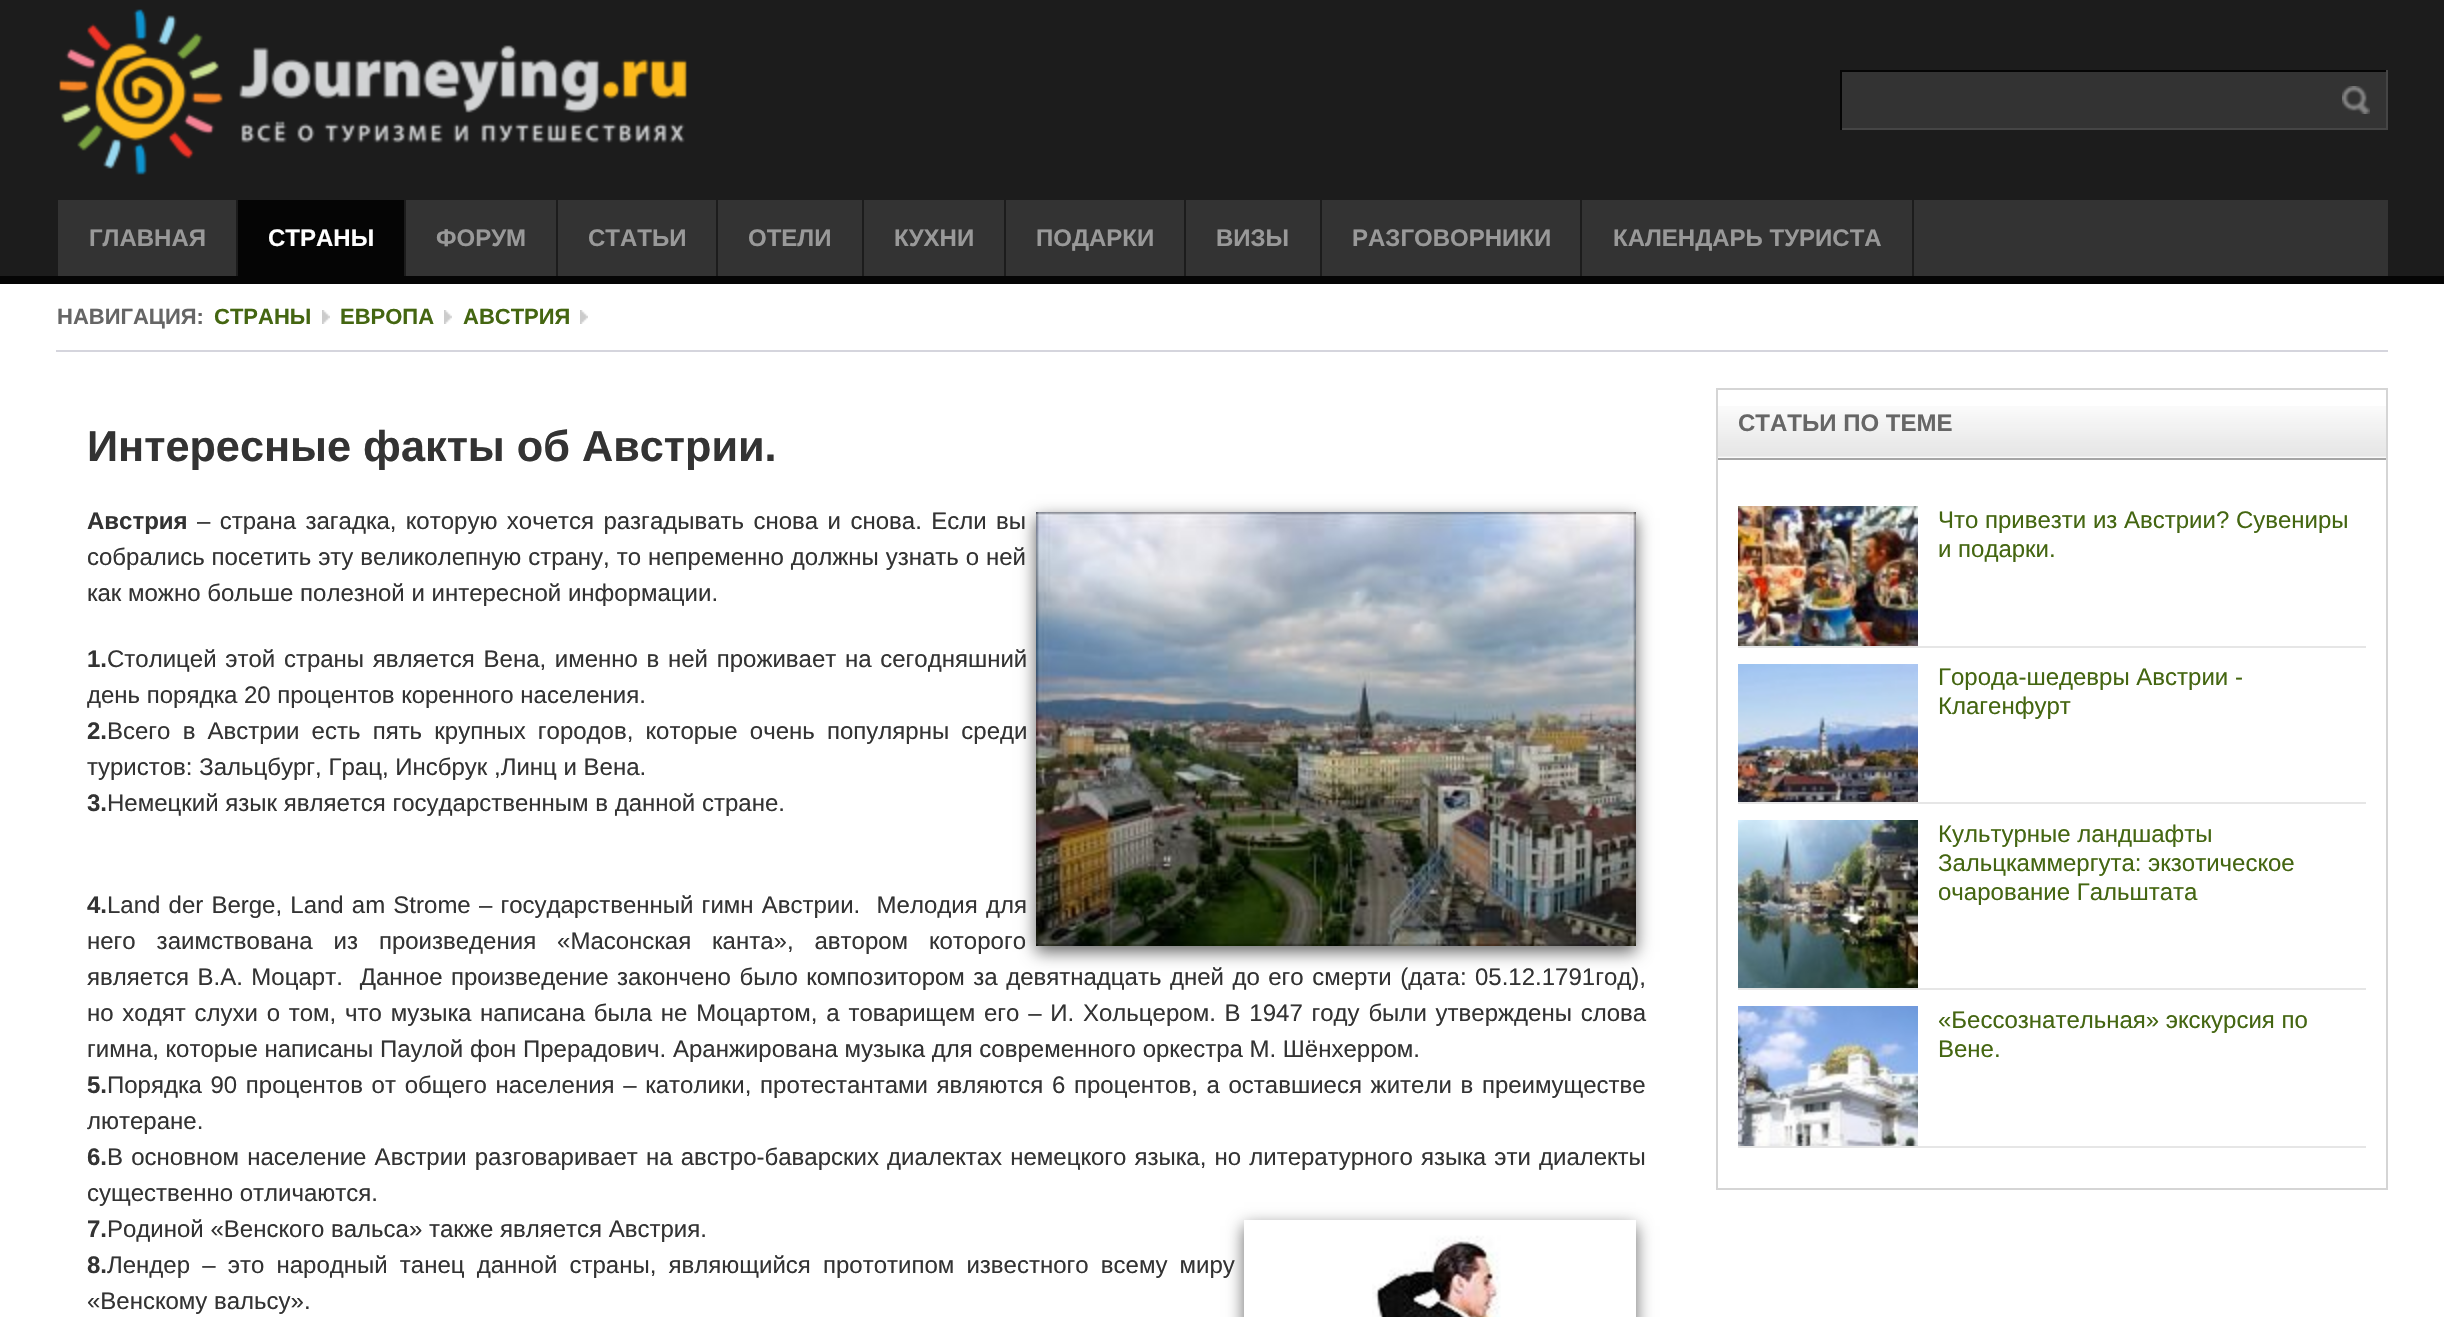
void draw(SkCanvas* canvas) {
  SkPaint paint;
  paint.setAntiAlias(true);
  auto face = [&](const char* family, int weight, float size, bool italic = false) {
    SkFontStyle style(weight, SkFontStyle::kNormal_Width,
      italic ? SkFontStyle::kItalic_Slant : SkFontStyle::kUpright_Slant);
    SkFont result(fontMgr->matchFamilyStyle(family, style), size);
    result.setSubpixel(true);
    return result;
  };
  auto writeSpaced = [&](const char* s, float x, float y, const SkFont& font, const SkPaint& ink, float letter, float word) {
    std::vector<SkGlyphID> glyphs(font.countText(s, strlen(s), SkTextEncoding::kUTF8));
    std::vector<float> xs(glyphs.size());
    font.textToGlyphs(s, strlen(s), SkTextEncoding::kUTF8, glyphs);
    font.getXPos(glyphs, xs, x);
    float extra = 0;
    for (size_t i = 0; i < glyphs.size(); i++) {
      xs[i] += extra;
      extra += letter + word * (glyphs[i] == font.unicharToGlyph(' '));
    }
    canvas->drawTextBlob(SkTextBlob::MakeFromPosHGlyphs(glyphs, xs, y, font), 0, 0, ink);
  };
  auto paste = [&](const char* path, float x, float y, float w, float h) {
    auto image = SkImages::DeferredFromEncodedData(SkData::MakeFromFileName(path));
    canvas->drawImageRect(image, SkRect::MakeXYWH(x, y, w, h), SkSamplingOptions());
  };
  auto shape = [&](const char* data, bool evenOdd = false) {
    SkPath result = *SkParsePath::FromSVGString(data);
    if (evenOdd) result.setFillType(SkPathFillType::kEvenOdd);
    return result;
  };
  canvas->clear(0xffffffff);
  paint.setColor(0xff1c1c1c);
  canvas->drawRect(SkRect::MakeXYWH(0, 0, 2444, 276), paint);
  paste("img/1.png", 59, 9, 628, 166);
  paint.setColor(0xff333333);
  canvas->drawRect(SkRect::MakeXYWH(1842, 72, 544, 56), paint);
  paste("img/2.png", 2342, 86, 28, 28);
  {
    const struct { float x, y, w, h; SkColor color; } items[] = {
      {1840, 70, 548, 2, 0xff050505},
      {2386, 70, 2, 60, 0xff454545},
      {1840, 128, 548, 2, 0xff454545},
      {1840, 70, 2, 60, 0xff050505},
      {0, 276, 2444, 8, 0xff050505},
      {58, 200, 2330, 76, 0xff333333},
      {1912, 200, 2, 76, 0xff1c1c1c},
      {238, 200, 166, 76, 0xff050505},
      {236, 200, 2, 76, 0xff1c1c1c},
      {404, 200, 2, 76, 0xff1c1c1c},
      {556, 200, 2, 76, 0xff1c1c1c},
      {716, 200, 2, 76, 0xff1c1c1c},
      {862, 200, 2, 76, 0xff1c1c1c},
      {1004, 200, 2, 76, 0xff1c1c1c},
      {1184, 200, 2, 76, 0xff1c1c1c},
      {1320, 200, 2, 76, 0xff1c1c1c},
      {1580, 200, 2, 76, 0xff1c1c1c},
      {56, 350, 2332, 2, 0xffd5d5dd},
    };
    for (auto [x, y, w, h, color] : items) {
      paint.setColor(color);
      canvas->drawRect(SkRect::MakeXYWH(x, y, w, h), paint);
    }
  }
  paste("img/3.png", 322, 310, 8, 14);
  paste("img/3.png", 444, 310, 8, 14);
  paste("img/3.png", 580, 310, 8, 14);
  paint.setColor(0x99000000);
  paint.setMaskFilter(SkMaskFilter::MakeBlur(kNormal_SkBlurStyle, 8));
  canvas->drawRect(SkRect::MakeXYWH(1036, 518, 600, 434), paint);
  paint.setMaskFilter(nullptr);
  paste("img/4.png", 1036, 512, 600, 434);
  canvas->save();
  canvas->clipPath(shape("M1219 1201H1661V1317H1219ZM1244 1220H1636V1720H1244Z", true), true);
  paint.setMaskFilter(SkMaskFilter::MakeBlur(kNormal_SkBlurStyle, 8));
  canvas->drawRect(SkRect::MakeXYWH(1244, 1226, 392, 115), paint);
  paint.setMaskFilter(nullptr);
  canvas->restore();
  paste("img/5.png", 1372, 1235, 129, 82);
  paint.setStroke(true);
  paint.setStrokeWidth(2);
  paint.setColor(0xffd5d5d5);
  canvas->drawRect(SkRect::MakeXYWH(1717, 389, 670, 800), paint);
  paste("img/6.png", 1718, 406, 668, 52);
  paint.setStroke(false);
  paint.setColor(0xffa5a5a5);
  canvas->drawRect(SkRect::MakeXYWH(1718, 458, 668, 2), paint);
  paint.setColor(0xffe6e6e6);
  canvas->drawRect(SkRect::MakeXYWH(1738, 646, 628, 2), paint);
  paste("img/7.png", 1738, 506, 180, 140);
  canvas->drawRect(SkRect::MakeXYWH(1738, 802, 628, 2), paint);
  paste("img/8.png", 1738, 664, 180, 138);
  canvas->drawRect(SkRect::MakeXYWH(1738, 988, 628, 2), paint);
  paste("img/9.png", 1738, 820, 180, 168);
  canvas->drawRect(SkRect::MakeXYWH(1738, 1146, 628, 2), paint);
  paste("img/10.png", 1738, 1006, 180, 140);
  auto f0 = face("Liberation Sans", 700, 24);
  paint.setColor(0xff999999);
  canvas->drawString("ГЛАВНАЯ", 89, 246, f0, paint);
  paint.setColor(0xffffffff);
  canvas->drawString("СТРАНЫ", 268, 246, f0, paint);
  paint.setColor(0xff999999);
  {
    const struct { const char* s; float x, y; } items[] = {
      {"ФОРУМ", 436, 246},
      {"СТАТЬИ", 588, 246},
      {"ОТЕЛИ", 748, 246},
      {"КУХНИ", 894, 246},
      {"ПОДАРКИ", 1036, 246},
      {"ВИЗЫ", 1216, 246},
      {"РАЗГОВОРНИКИ", 1352, 246},
      {"КАЛЕНДАРЬ ТУРИСТА", 1613, 246},
    };
    for (auto [s, x, y] : items) {
      canvas->drawString(s, x, y, f0, paint);
    }
  }
  auto f1 = face("Liberation Sans", 700, 22);
  paint.setColor(0xff666666);
  canvas->drawString("НАВИГАЦИЯ:", 57, 324, f1, paint);
  paint.setColor(0xff446611);
  {
    const struct { const char* s; float x, y; } items[] = {
      {"СТРАНЫ", 214, 324},
      {"ЕВРОПА", 340, 324},
      {"АВСТРИЯ", 463, 324},
    };
    for (auto [s, x, y] : items) {
      canvas->drawString(s, x, y, f1, paint);
    }
  }
  auto f2 = face("Liberation Sans", 700, 43.25f);
  paint.setColor(0xff333333);
  canvas->drawString("Интересные факты об Австрии.", 87, 461, f2, paint);
  canvas->drawString("Австрия", 87, 529, f0, paint);
  auto f3 = face("Liberation Sans", 400, 24);
  writeSpaced("– страна загадка, которую хочется разгадывать снова и снова. Если вы", 197, 529, f3, paint, 0, 2.75f);
  writeSpaced("собрались посетить эту великолепную страну, то непременно должны узнать о ней", 87, 565, f3, paint, 0, 0.25f);
  canvas->drawString("как можно больше полезной и интересной информации.", 87, 601, f3, paint);
  canvas->drawString("1.", 87, 667, f0, paint);
  writeSpaced("Столицей этой страны является Вена, именно в ней проживает на сегодняшний", 107, 667, f3, paint, 0, 2);
  canvas->drawString("день порядка 20 процентов коренного населения.", 87, 703, f3, paint);
  canvas->drawString("2.", 87, 739, f0, paint);
  writeSpaced("Всего в Австрии есть пять крупных городов, которые очень популярны среди", 107, 739, f3, paint, 0, 5.5f);
  canvas->drawString("туристов: Зальцбург, Грац, Инсбрук ,Линц и Вена.", 87, 775, f3, paint);
  canvas->drawString("3.", 87, 811, f0, paint);
  canvas->drawString("Немецкий язык является государственным в данной стране.", 107, 811, f3, paint);
  canvas->drawString("4.", 87, 913, f0, paint);
  writeSpaced("Land der Berge, Land am Strome – государственный гимн Австрии.  Мелодия для", 107, 913, f3, paint, 0, 1.5f);
  writeSpaced("него заимствована из произведения «Масонская канта», автором которого", 87, 949, f3, paint, 0, 14.25f);
  writeSpaced("является В.А. Моцарт.  Данное произведение закончено было композитором за девятнадцать дней до его смерти (дата: 05.12.1791год),", 87, 985, f3, paint, 0, 1.8f);
  writeSpaced("но ходят слухи о том, что музыка написана была не Моцартом, а товарищем его – И. Хольцером. В 1947 году были утверждены слова", 87, 1021, f3, paint, 0, 2.1f);
  canvas->drawString("гимна, которые написаны Паулой фон Прерадович. Аранжирована музыка для современного оркестра М. Шёнхерром.", 87, 1057, f3, paint);
  canvas->drawString("5.", 87, 1093, f0, paint);
  writeSpaced("Порядка 90 процентов от общего населения – католики, протестантами являются 6 процентов, а оставшиеся жители в преимуществе", 107, 1093, f3, paint, 0, 2);
  canvas->drawString("лютеране.", 87, 1129, f3, paint);
  canvas->drawString("6.", 87, 1165, f0, paint);
  writeSpaced("В основном население Австрии разговаривает на австро-баварских диалектах немецкого языка, но литературного языка эти диалекты", 107, 1165, f3, paint, 0, 1.5f);
  canvas->drawString("существенно отличаются.", 87, 1201, f3, paint);
  canvas->drawString("7.", 87, 1237, f0, paint);
  canvas->drawString("Родиной «Венского вальса» также является Австрия.", 107, 1237, f3, paint);
  canvas->drawString("8.", 87, 1273, f0, paint);
  writeSpaced("Лендер – это народный танец данной страны, являющийся прототипом известного всему миру", 107, 1273, f3, paint, 0, 5.5f);
  canvas->drawString("«Венскому вальсу».", 87, 1309, f3, paint);
  paint.setColor(0xff666666);
  canvas->drawString("СТАТЬИ ПО ТЕМЕ", 1738, 431, f0, paint);
  paint.setColor(0xff446611);
  {
    const struct { const char* s; float x, y; } items[] = {
      {"Что привезти из Австрии? Сувениры", 1938, 528},
      {"и подарки.", 1938, 557},
      {"Города-шедевры Австрии -", 1938, 685},
      {"Клагенфурт", 1938, 714},
      {"Культурные ландшафты", 1938, 842},
      {"Зальцкаммергута: экзотическое", 1938, 871},
      {"очарование Гальштата", 1938, 900},
      {"«Бессознательная» экскурсия по", 1938, 1028},
      {"Вене.", 1938, 1057},
    };
    for (auto [s, x, y] : items) {
      canvas->drawString(s, x, y, f3, paint);
    }
  }
}
